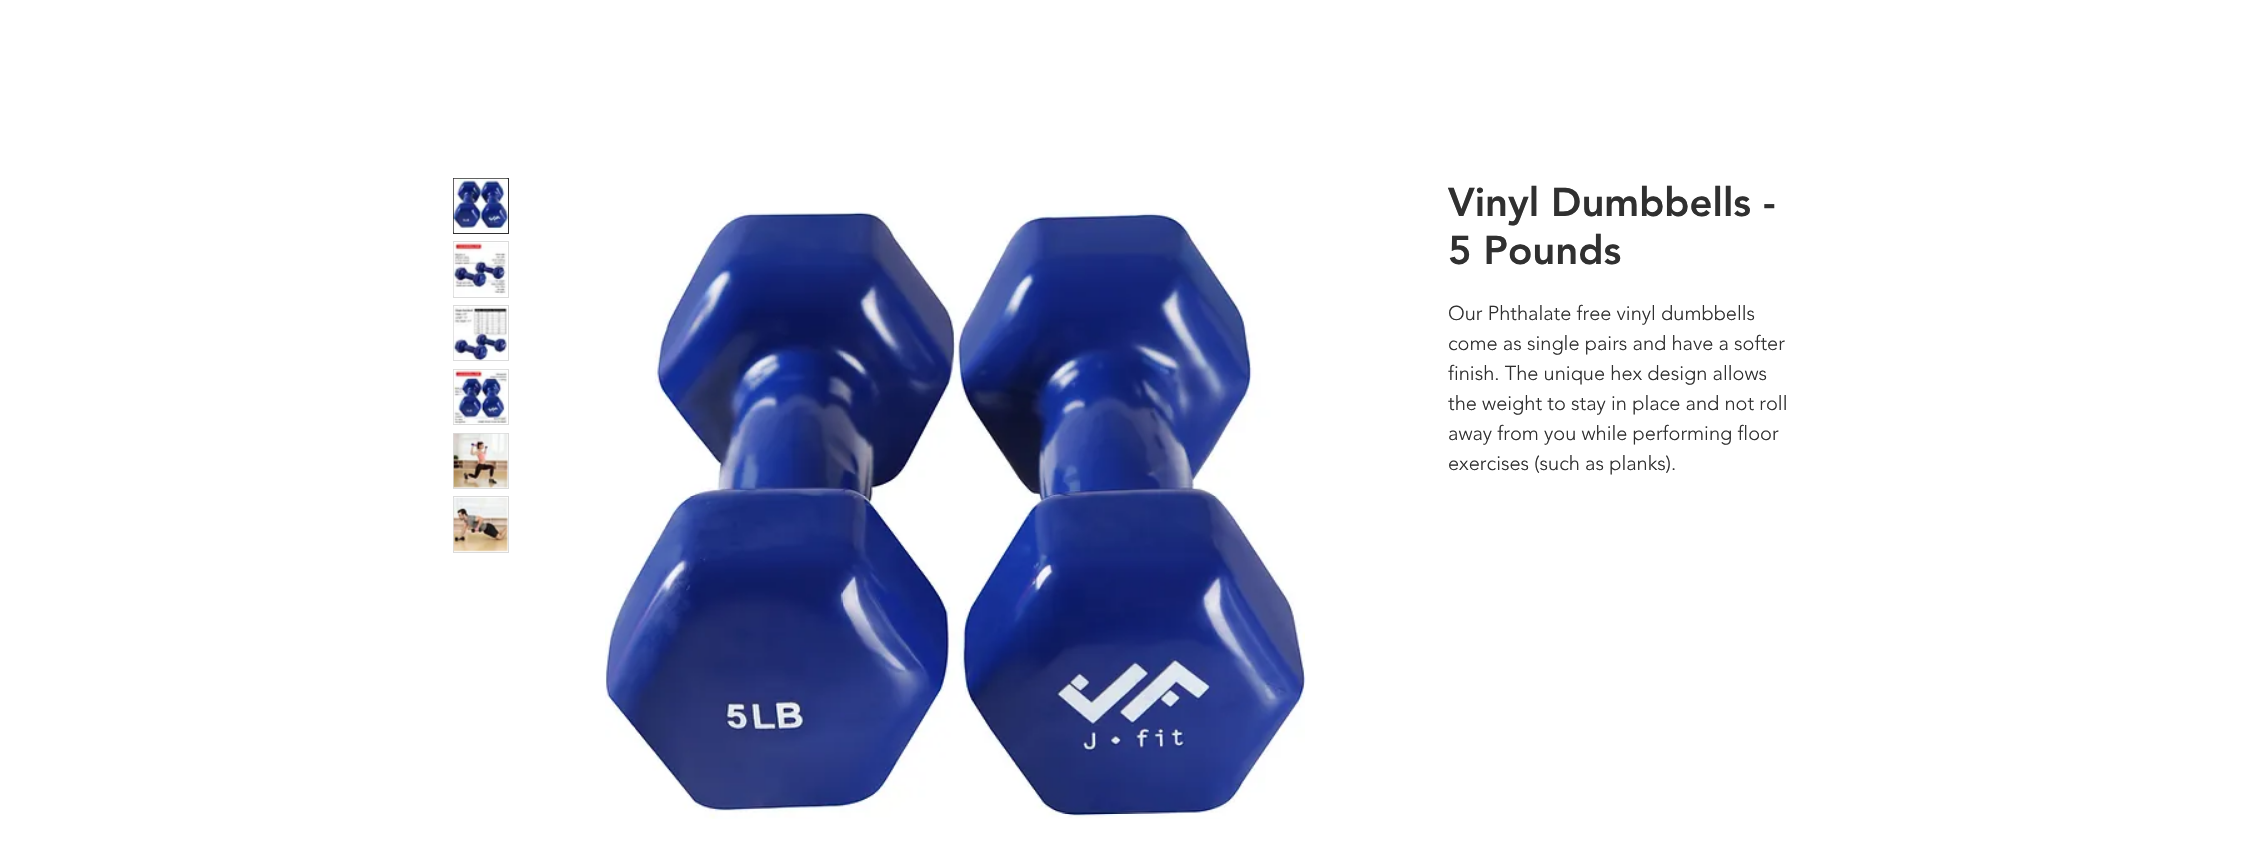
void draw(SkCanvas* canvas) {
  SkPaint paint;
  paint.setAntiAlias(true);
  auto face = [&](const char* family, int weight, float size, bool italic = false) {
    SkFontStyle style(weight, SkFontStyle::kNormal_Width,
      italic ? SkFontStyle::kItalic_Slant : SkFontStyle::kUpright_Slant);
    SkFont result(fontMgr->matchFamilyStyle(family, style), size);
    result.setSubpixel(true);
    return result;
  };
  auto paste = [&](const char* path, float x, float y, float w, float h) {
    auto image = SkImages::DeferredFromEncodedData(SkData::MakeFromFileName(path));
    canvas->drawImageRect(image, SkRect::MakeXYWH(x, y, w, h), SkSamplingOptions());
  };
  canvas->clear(0xffffffff);
  paint.setStroke(true);
  paint.setStrokeWidth(1);
  paint.setColor(0xff303030);
  canvas->drawRect(SkRect::MakeXYWH(453.5f, 178.5f, 55, 55), paint);
  paste("img/1.png", 453, 178, 55, 55);
  paint.setColor(0xffdbdbdb);
  canvas->drawRect(SkRect::MakeXYWH(453.5f, 241.5f, 55, 56), paint);
  paste("img/2.png", 453, 242, 54, 54);
  canvas->drawRect(SkRect::MakeXYWH(453.5f, 305.5f, 55, 55), paint);
  paste("img/3.png", 453, 306, 54, 55);
  canvas->drawRect(SkRect::MakeXYWH(453.5f, 369.5f, 55, 55), paint);
  paste("img/4.png", 453, 369, 54, 55);
  canvas->drawRect(SkRect::MakeXYWH(453.5f, 433.5f, 55, 55), paint);
  paste("img/5.png", 453, 433, 55, 55);
  canvas->drawRect(SkRect::MakeXYWH(453.5f, 496.5f, 55, 56), paint);
  paste("img/6.png", 453, 497, 55, 55);
  paste("img/7.png", 605, 210, 701, 609);
  auto f0 = face("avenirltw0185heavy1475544", 900, 40);
  paint.setStroke(false);
  paint.setColor(0xff303030);
  canvas->drawString("Vinyl Dumbbells -", 1448, 216, f0, paint);
  canvas->drawString("5 Pounds", 1448, 264, f0, paint);
  auto f1 = face("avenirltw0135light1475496", 300, 20);
  {
    const struct { const char* s; float x, y; } items[] = {
      {"Our Phthalate free vinyl dumbbells", 1448, 320},
      {"come as single pairs and have a softer", 1448, 350},
      {"finish. The unique hex design allows", 1448, 380},
      {"the weight to stay in place and not roll", 1448, 410},
      {"away from you while performing floor", 1448, 440},
      {"exercises (such as planks).", 1448, 470},
    };
    for (auto [s, x, y] : items) {
      canvas->drawString(s, x, y, f1, paint);
    }
  }
}
